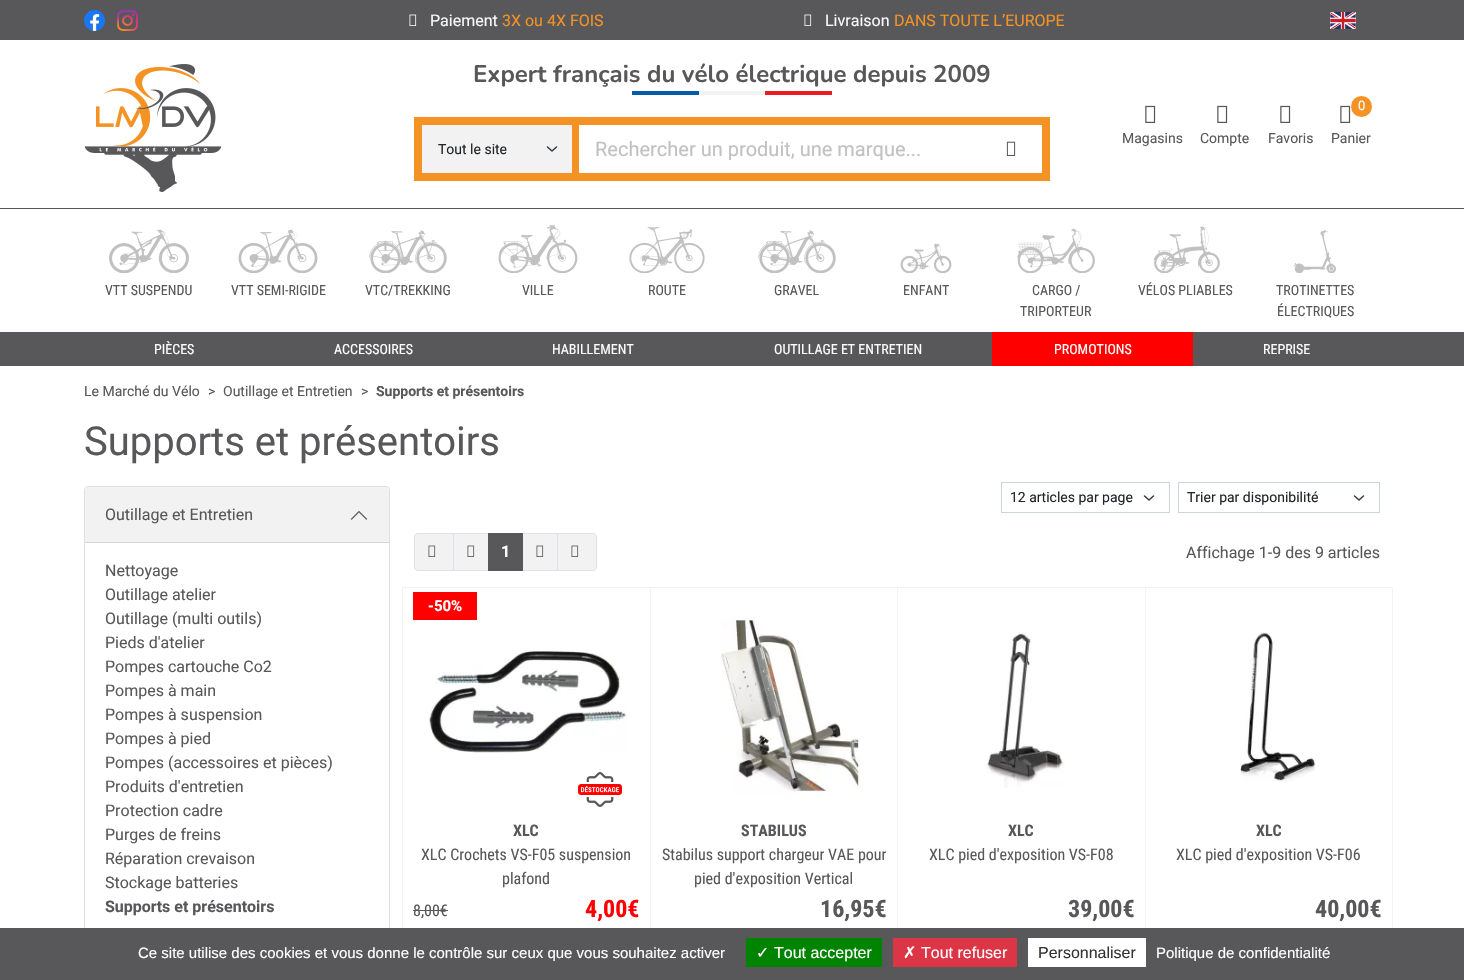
void draw(SkCanvas* canvas) {
  SkPaint paint;
  paint.setAntiAlias(true);
  auto face = [&](const char* family, int weight, float size, bool italic = false) {
    SkFontStyle style(weight, SkFontStyle::kNormal_Width,
      italic ? SkFontStyle::kItalic_Slant : SkFontStyle::kUpright_Slant);
    SkFont result(fontMgr->matchFamilyStyle(family, style), size);
    result.setSubpixel(true);
    return result;
  };
  auto paste = [&](const char* path, float x, float y, float w, float h) {
    auto image = SkImages::DeferredFromEncodedData(SkData::MakeFromFileName(path));
    canvas->drawImageRect(image, SkRect::MakeXYWH(x, y, w, h), SkSamplingOptions());
  };
  auto shape = [&](const char* data, bool evenOdd = false) {
    SkPath result = *SkParsePath::FromSVGString(data);
    if (evenOdd) result.setFillType(SkPathFillType::kEvenOdd);
    return result;
  };
  canvas->clear(0xffffffff);
  paint.setColor(0xff58585a);
  canvas->drawRect(SkRect::MakeXYWH(0, 0, 1464, 40), paint);
  paste("img/1.png", 84, 10, 21, 21);
  paste("img/2.png", 117, 10, 21, 21);
  paste("img/3.png", 409, 14, 8, 12);
  paste("img/3.png", 804, 14, 8, 12);
  paste("img/4.png", 1330, 12, 26, 17);
  paste("img/5.png", 84, 64, 138, 128);
  {
    const struct { float x, y, w, h; SkColor color; } items[] = {
      {632, 91, 67, 4, 0xff005bab},
      {699, 91, 66, 4, 0xfff2f2f2},
      {765, 91, 67, 4, 0xffec1c24},
      {414, 117, 636, 64, 0xfff49224},
      {422, 125, 150, 48, 0xfff2f2f2},
    };
    for (auto [x, y, w, h, color] : items) {
      paint.setColor(color);
      canvas->drawRect(SkRect::MakeXYWH(x, y, w, h), paint);
    }
  }
  paint.setStroke(true);
  paint.setStrokeWidth(1.5f);
  paint.setStrokeCap(SkPaint::kRound_Cap);
  paint.setStrokeJoin(SkPaint::kRound_Join);
  paint.setColor(0xff343a40);
  canvas->drawPath(shape("M547.5 147L552 151L556.5 147"), paint);
  paint.setStroke(false);
  paint.setColor(0xffffffff);
  canvas->drawRect(SkRect::MakeXYWH(579, 125, 463, 48), paint);
  paste("img/6.png", 1006, 141, 10, 15);
  paste("img/7.png", 1145, 105, 11, 18);
  paste("img/7.png", 1217, 105, 11, 18);
  paste("img/7.png", 1280, 105, 11, 18);
  paste("img/7.png", 1340, 105, 11, 18);
  paint.setColor(0xfff49224);
  canvas->drawCircle(1361.5f, 106.5f, 10.5f, paint);
  paint.setColor(0xff58585a);
  canvas->drawRect(SkRect::MakeXYWH(0, 208, 1464, 1), paint);
  paste("img/8.png", 109, 229, 80, 44);
  paste("img/9.png", 238, 229, 80, 44);
  paste("img/10.png", 369, 230, 78, 43);
  paste("img/11.png", 498, 225, 80, 48);
  paste("img/12.png", 629, 226, 76, 47);
  paste("img/10.png", 758, 230, 78, 43);
  paste("img/13.png", 900, 243, 52, 30);
  paste("img/14.png", 1017, 228, 78, 45);
  paste("img/15.png", 1152, 226, 68, 47);
  paste("img/16.png", 1294, 230, 42, 43);
  canvas->drawRect(SkRect::MakeXYWH(0, 332, 1464, 34), paint);
  paint.setColor(0xffff0000);
  canvas->drawRect(SkRect::MakeXYWH(992, 332, 201, 34), paint);
  paint.setStroke(true);
  paint.setStrokeWidth(1);
  paint.setStrokeCap(SkPaint::kButt_Cap);
  paint.setStrokeJoin(SkPaint::kMiter_Join);
  paint.setColor(0xffdfdfdf);
  canvas->drawRoundRect(SkRect::MakeXYWH(84.5f, 486.5f, 305, 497), 3.5f, 3.5f, paint);
  paint.setStroke(false);
  paint.setColor(0xfff2f2f2);
  canvas->drawPath(shape("M88 487H386C387.5 487 389 488.5 389 490V543H85V490C85 488.5 86.5 487 88 487Z"), paint);
  paint.setColor(0xffd4d4d4);
  canvas->drawRect(SkRect::MakeXYWH(85, 542, 304, 1), paint);
  paste("img/17.png", 350, 511, 18, 9);
  paint.setStroke(true);
  paint.setStrokeWidth(1.5f);
  paint.setStrokeCap(SkPaint::kRound_Cap);
  paint.setStrokeJoin(SkPaint::kRound_Join);
  paint.setColor(0xff343a40);
  canvas->drawPath(shape("M1144.5 496L1149 500L1153.5 496"), paint);
  paint.setStrokeWidth(1);
  paint.setStrokeCap(SkPaint::kButt_Cap);
  paint.setStrokeJoin(SkPaint::kMiter_Join);
  paint.setColor(0xffced4da);
  canvas->drawRect(SkRect::MakeXYWH(1001.5f, 482.5f, 168, 30), paint);
  paint.setStrokeWidth(1.5f);
  paint.setStrokeCap(SkPaint::kRound_Cap);
  paint.setStrokeJoin(SkPaint::kRound_Join);
  paint.setColor(0xff343a40);
  canvas->drawPath(shape("M1354.5 496L1359 500L1363.5 496"), paint);
  paint.setStrokeWidth(1);
  paint.setStrokeCap(SkPaint::kButt_Cap);
  paint.setStrokeJoin(SkPaint::kMiter_Join);
  paint.setColor(0xffced4da);
  canvas->drawRect(SkRect::MakeXYWH(1178.5f, 482.5f, 201, 30), paint);
  paint.setStroke(false);
  paint.setColor(0xfff2f2f2);
  canvas->drawPath(shape("M418 533.5H453.5V570.5H418C416 570.5 414.5 569 414.5 567V537C414.5 535 416 533.5 418 533.5Z"), paint);
  paint.setStroke(true);
  paint.setColor(0xffdee2e6);
  canvas->drawPath(shape("M418 533.5H453.5V570.5H418C416 570.5 414.5 569 414.5 567V537C414.5 535 416 533.5 418 533.5Z"), paint);
  paste("img/18.png", 428, 545, 8, 12);
  paint.setStroke(false);
  paint.setColor(0xfff2f2f2);
  canvas->drawRect(SkRect::MakeXYWH(453.5f, 533.5f, 35, 37), paint);
  paint.setStroke(true);
  paint.setColor(0xffdee2e6);
  canvas->drawRect(SkRect::MakeXYWH(453.5f, 533.5f, 35, 37), paint);
  paste("img/18.png", 467, 545, 8, 12);
  paint.setStroke(false);
  paint.setColor(0xfff2f2f2);
  canvas->drawRect(SkRect::MakeXYWH(522.5f, 533.5f, 35, 37), paint);
  paint.setStroke(true);
  paint.setColor(0xffdee2e6);
  canvas->drawRect(SkRect::MakeXYWH(522.5f, 533.5f, 35, 37), paint);
  paint.setStroke(false);
  paint.setColor(0xff58585a);
  canvas->drawRect(SkRect::MakeXYWH(488, 533, 35, 38), paint);
  paste("img/18.png", 536, 545, 8, 12);
  paint.setColor(0xfff2f2f2);
  canvas->drawPath(shape("M557.5 533.5H593C595 533.5 596.5 535 596.5 537V567C596.5 569 595 570.5 593 570.5H557.5Z"), paint);
  paint.setStroke(true);
  paint.setColor(0xffdee2e6);
  canvas->drawPath(shape("M557.5 533.5H593C595 533.5 596.5 535 596.5 537V567C596.5 569 595 570.5 593 570.5H557.5Z"), paint);
  paste("img/18.png", 571, 545, 8, 12);
  paint.setStroke(false);
  {
    const struct { float x, y, w, h; SkColor color; } items[] = {
      {402, 587, 990, 1, 0xfff2f2f2},
      {402, 587, 1, 341, 0xfff2f2f2},
      {413, 592, 64, 28, 0xffff0000},
    };
    for (auto [x, y, w, h, color] : items) {
      paint.setColor(color);
      canvas->drawRect(SkRect::MakeXYWH(x, y, w, h), paint);
    }
  }
  paste("img/19.png", 578, 772, 44, 35);
  paste("img/20.png", 427, 650, 200, 103);
  paint.setColor(0xfff2f2f2);
  canvas->drawRect(SkRect::MakeXYWH(650, 588, 1, 340), paint);
  paint.setColor(0xff58585a);
  canvas->drawRect(SkRect::MakeXYWH(413, 910, 35, 1), paint);
  paste("img/21.png", 721, 617, 140, 178);
  paint.setColor(0xfff2f2f2);
  canvas->drawRect(SkRect::MakeXYWH(897, 588, 1, 340), paint);
  paste("img/22.png", 986, 632, 79, 156);
  canvas->drawRect(SkRect::MakeXYWH(1145, 588, 1, 340), paint);
  paste("img/23.png", 1240, 632, 76, 150);
  {
    const struct { float x, y, w, h; SkColor color; } items[] = {
      {1392, 588, 1, 340, 0xfff2f2f2},
      {0, 928, 1464, 52, 0xff58585a},
      {746, 938, 136, 29, 0xff008300},
      {893, 938, 124, 29, 0xffdc3545},
      {1028, 938, 118, 29, 0xffffffff},
    };
    for (auto [x, y, w, h, color] : items) {
      paint.setColor(color);
      canvas->drawRect(SkRect::MakeXYWH(x, y, w, h), paint);
    }
  }
  auto f0 = face("Roboto", 400, 16);
  paint.setColor(0xfff8f9fa);
  canvas->drawString("Paiement", 430, 26, f0, paint);
  paint.setColor(0xfff49224);
  canvas->drawString("3X ou 4X FOIS", 502, 26, f0, paint);
  paint.setColor(0xfff8f9fa);
  canvas->drawString("Livraison", 825, 26, f0, paint);
  paint.setColor(0xfff49224);
  canvas->drawString("DANS TOUTE L’EUROPE", 894, 26, f0, paint);
  auto f1 = face("Nunito", 200, 24);
  paint.setColor(0xff58585a);
  canvas->drawString("Expert français du vélo électrique depuis 2009", 473, 82, f1, paint);
  auto f2 = face("Roboto", 400, 14);
  paint.setColor(0xff212529);
  canvas->drawString("Tout le site", 438, 154, f2, paint);
  auto f3 = face("Roboto", 400, 20);
  paint.setColor(0xffc1c1c1);
  canvas->drawString("Rechercher un produit, une marque...", 595, 156, f3, paint);
  paint.setColor(0xff58585a);
  {
    const struct { const char* s; float x, y; } items[] = {
      {"Magasins", 1122, 143},
      {"Compte", 1200, 143},
      {"Favoris", 1268, 143},
    };
    for (auto [s, x, y] : items) {
      canvas->drawString(s, x, y, f2, paint);
    }
  }
  auto f4 = face("Roboto", 400, 13);
  paint.setColor(0xffffffff);
  canvas->drawString("0", 1358, 110, f4, paint);
  paint.setColor(0xff58585a);
  canvas->drawString("Panier", 1331, 143, f2, paint);
  auto f5 = face("Roboto Condensed", 400, 14);
  {
    const struct { const char* s; float x, y; } items[] = {
      {"VTT SUSPENDU", 105, 295},
      {"VTT SEMI-RIGIDE", 231, 295},
      {"VTC/TREKKING", 365, 295},
      {"VILLE", 522, 295},
      {"ROUTE", 648, 295},
      {"GRAVEL", 774, 295},
      {"ENFANT", 903, 295},
      {"CARGO /", 1032, 295},
      {"TRIPORTEUR", 1020, 316},
      {"VÉLOS PLIABLES", 1138, 295},
      {"TROTINETTES", 1276, 295},
      {"ÉLECTRIQUES", 1277, 316},
    };
    for (auto [s, x, y] : items) {
      canvas->drawString(s, x, y, f5, paint);
    }
  }
  paint.setColor(0xffffffff);
  {
    const struct { const char* s; float x, y; } items[] = {
      {"PIÈCES", 154, 354},
      {"ACCESSOIRES", 334, 354},
      {"HABILLEMENT", 552, 354},
      {"OUTILLAGE ET ENTRETIEN", 774, 354},
      {"PROMOTIONS", 1054, 354},
      {"REPRISE", 1263, 354},
    };
    for (auto [s, x, y] : items) {
      canvas->drawString(s, x, y, f5, paint);
    }
  }
  paint.setColor(0xff58585a);
  {
    const struct { const char* s; float x, y; } items[] = {
      {"Le Marché du Vélo", 84, 396},
      {">", 208, 396},
      {"Outillage et Entretien", 223, 396},
      {">", 361, 396},
    };
    for (auto [s, x, y] : items) {
      canvas->drawString(s, x, y, f2, paint);
    }
  }
  auto f6 = face("Roboto", 700, 14);
  canvas->drawString("Supports et présentoirs", 376, 396, f6, paint);
  auto f7 = face("Roboto", 400, 40);
  canvas->drawString("Supports et présentoirs", 84, 455, f7, paint);
  {
    const struct { const char* s; float x, y; } items[] = {
      {"Outillage et Entretien", 105, 520},
      {"Nettoyage", 105, 576},
      {"Outillage atelier", 105, 600},
      {"Outillage (multi outils)", 105, 624},
      {"Pieds d'atelier", 105, 648},
      {"Pompes cartouche Co2", 105, 672},
      {"Pompes à main", 105, 696},
      {"Pompes à suspension", 105, 720},
      {"Pompes à pied", 105, 744},
      {"Pompes (accessoires et pièces)", 105, 768},
      {"Produits d'entretien", 105, 792},
      {"Protection cadre", 105, 816},
      {"Purges de freins", 105, 840},
      {"Réparation crevaison", 105, 864},
      {"Stockage batteries", 105, 888},
    };
    for (auto [s, x, y] : items) {
      canvas->drawString(s, x, y, f0, paint);
    }
  }
  auto f8 = face("Roboto", 700, 16);
  canvas->drawString("Supports et présentoirs", 105, 912, f8, paint);
  paint.setColor(0xff212529);
  canvas->drawString("12 articles par page", 1010, 502, f2, paint);
  canvas->drawString("Trier par disponibilité", 1187, 502, f2, paint);
  paint.setColor(0xffffffff);
  canvas->drawString("1", 501, 557, f8, paint);
  paint.setColor(0xff58585a);
  canvas->drawString("Affichage 1-9 des 9 articles", 1186, 558, f0, paint);
  auto f9 = face("Roboto", 700, 15);
  paint.setColor(0xffffffff);
  canvas->drawString("-50%", 428, 611, f9, paint);
  auto f10 = face("Roboto Condensed", 700, 16);
  paint.setColor(0xff58585a);
  canvas->drawString("XLC", 513, 836, f10, paint);
  auto f11 = face("Roboto Condensed", 400, 16);
  {
    const struct { const char* s; float x, y; } items[] = {
      {"XLC Crochets VS-F05 suspension", 421, 860},
      {"plafond", 502, 884},
      {"8,00€", 413, 916},
    };
    for (auto [s, x, y] : items) {
      canvas->drawString(s, x, y, f11, paint);
    }
  }
  auto f12 = face("Roboto Condensed", 700, 24);
  paint.setColor(0xffff0000);
  canvas->drawString("4,00€", 585, 917, f12, paint);
  paint.setColor(0xff58585a);
  canvas->drawString("STABILUS", 741, 836, f10, paint);
  canvas->drawString("Stabilus support chargeur VAE pour", 662, 860, f11, paint);
  canvas->drawString("pied d'exposition Vertical", 694, 884, f11, paint);
  canvas->drawString("16,95€", 820, 917, f12, paint);
  canvas->drawString("XLC", 1008, 836, f10, paint);
  canvas->drawString("XLC pied d'exposition VS-F08", 929, 860, f11, paint);
  canvas->drawString("39,00€", 1068, 917, f12, paint);
  canvas->drawString("XLC", 1256, 836, f10, paint);
  canvas->drawString("XLC pied d'exposition VS-F06", 1176, 860, f11, paint);
  canvas->drawString("40,00€", 1315, 917, f12, paint);
  auto f13 = face("Liberation Sans", 400, 15);
  paint.setColor(0xffffffff);
  canvas->drawString("Ce site utilise des cookies et vous donne le contrôle sur ceux que vous souhaitez activer", 138, 958, f13, paint);
  auto f14 = face("DejaVu Sans", 400, 16);
  canvas->drawString("✓", 756, 958, f14, paint);
  auto f15 = face("Liberation Sans", 400, 16);
  canvas->drawString("Tout accepter", 774, 958, f15, paint);
  canvas->drawString("✗", 903, 958, f14, paint);
  canvas->drawString("Tout refuser", 921, 958, f15, paint);
  paint.setColor(0xff333333);
  canvas->drawString("Personnaliser", 1038, 958, f15, paint);
  paint.setColor(0xffffffff);
  canvas->drawString("Politique de confidentialité", 1156, 958, f13, paint);
}
